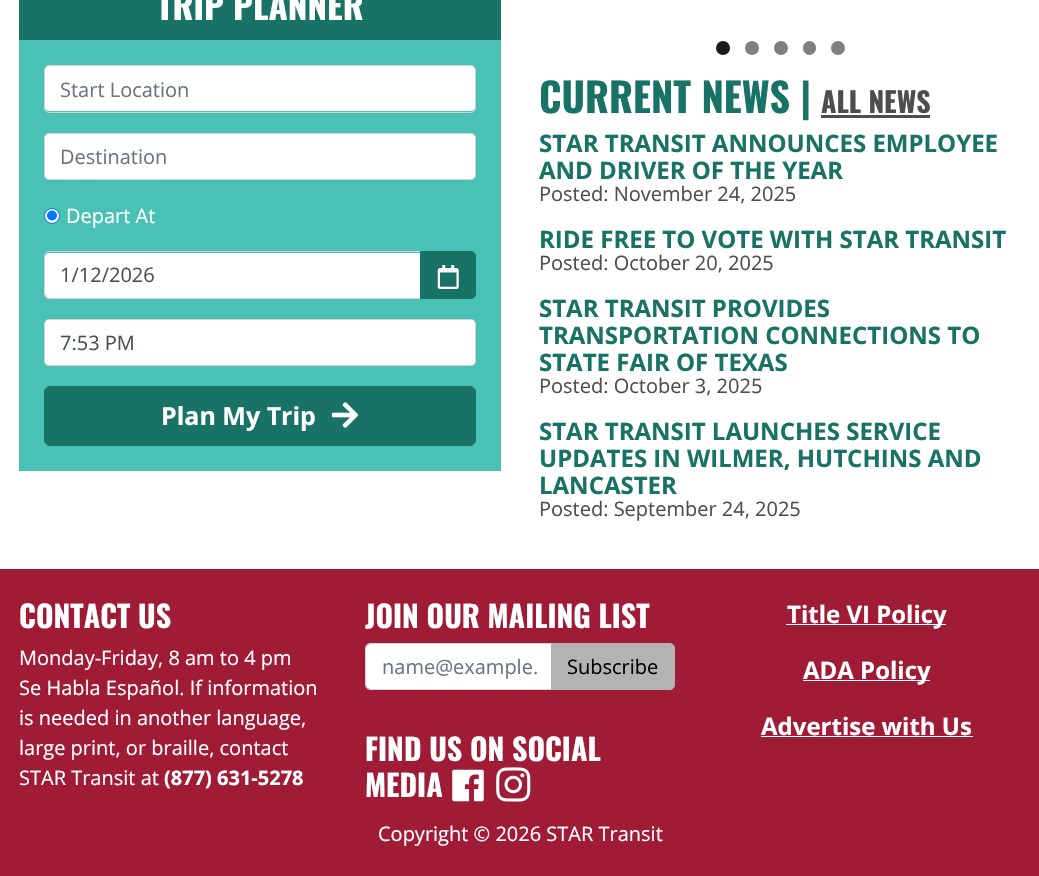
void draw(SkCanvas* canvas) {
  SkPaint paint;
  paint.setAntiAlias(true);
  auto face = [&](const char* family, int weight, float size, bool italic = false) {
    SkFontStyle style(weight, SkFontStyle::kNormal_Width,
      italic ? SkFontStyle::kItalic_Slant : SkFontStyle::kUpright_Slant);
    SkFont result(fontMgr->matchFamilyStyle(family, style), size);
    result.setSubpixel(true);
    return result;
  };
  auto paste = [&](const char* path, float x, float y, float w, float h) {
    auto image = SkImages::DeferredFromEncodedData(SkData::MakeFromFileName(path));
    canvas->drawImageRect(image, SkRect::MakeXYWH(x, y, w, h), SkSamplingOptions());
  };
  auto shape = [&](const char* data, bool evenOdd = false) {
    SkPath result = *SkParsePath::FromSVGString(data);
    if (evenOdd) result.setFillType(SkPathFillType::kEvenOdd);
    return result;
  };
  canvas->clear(0xffffffff);
  paint.setColor(0xff187265);
  canvas->drawRect(SkRect::MakeXYWH(19, 0, 482, 40), paint);
  paint.setColor(0xff49c1b5);
  canvas->drawRect(SkRect::MakeXYWH(19, 40, 482, 431), paint);
  paint.setColor(0xffffffff);
  canvas->drawRoundRect(SkRect::MakeXYWH(45, 66, 430, 45), 4, 4, paint);
  paint.setStroke(true);
  paint.setStrokeWidth(1);
  paint.setColor(0xffced4da);
  canvas->drawRoundRect(SkRect::MakeXYWH(44.5f, 65.5f, 431, 47), 4.5f, 4.5f, paint);
  paint.setStroke(false);
  paint.setColor(0xffffffff);
  canvas->drawRoundRect(SkRect::MakeXYWH(44.5f, 133.5f, 431, 46), 4.5f, 4.5f, paint);
  paint.setStroke(true);
  paint.setColor(0xffced4da);
  canvas->drawRoundRect(SkRect::MakeXYWH(44.5f, 133.5f, 431, 46), 4.5f, 4.5f, paint);
  paint.setStroke(false);
  paint.setColor(0xffffffff);
  canvas->drawCircle(52, 216, 7.5f, paint);
  paint.setStroke(true);
  paint.setColor(0xff0075ff);
  canvas->drawCircle(52, 216, 7.5f, paint);
  paint.setStroke(false);
  canvas->drawCircle(52, 215.5f, 5, paint);
  paint.setColor(0xffffffff);
  canvas->drawPath(shape("M49 253H420V298H49C47 298 45 296 45 294V257C45 255 47 253 49 253Z"), paint);
  paint.setStroke(true);
  paint.setColor(0xffced4da);
  canvas->drawPath(shape("M49 251.5H420.5V298.5H49C46.5 298.5 44.5 296.5 44.5 294V256C44.5 253.5 46.5 251.5 49 251.5Z"), paint);
  paint.setStroke(false);
  paint.setColor(0xff187265);
  canvas->drawPath(shape("M420.5 251.5H471C473.5 251.5 475.5 253.5 475.5 256V294C475.5 296.5 473.5 298.5 471 298.5H420.5Z"), paint);
  paint.setStroke(true);
  canvas->drawPath(shape("M420.5 251.5H471C473.5 251.5 475.5 253.5 475.5 256V294C475.5 296.5 473.5 298.5 471 298.5H420.5Z"), paint);
  paste("img/1.png", 437, 265, 22, 24);
  paint.setStroke(false);
  paint.setColor(0xffffffff);
  canvas->drawRoundRect(SkRect::MakeXYWH(44.5f, 319.5f, 431, 46), 4.5f, 4.5f, paint);
  paint.setStroke(true);
  paint.setColor(0xffced4da);
  canvas->drawRoundRect(SkRect::MakeXYWH(44.5f, 319.5f, 431, 46), 4.5f, 4.5f, paint);
  paint.setStroke(false);
  paint.setColor(0xff187265);
  canvas->drawRoundRect(SkRect::MakeXYWH(44.5f, 386.5f, 431, 59), 5.5f, 5.5f, paint);
  paint.setStroke(true);
  canvas->drawRoundRect(SkRect::MakeXYWH(44.5f, 386.5f, 431, 59), 5.5f, 5.5f, paint);
  paste("img/2.png", 331, 402, 28, 26);
  paint.setStroke(false);
  paint.setColor(0xff1a1a1a);
  canvas->drawCircle(723, 48, 7, paint);
  paint.setColor(0xff808080);
  canvas->drawCircle(752, 48, 7, paint);
  canvas->drawCircle(781, 48, 7, paint);
  canvas->drawRoundRect(SkRect::MakeXYWH(803, 41, 13, 14), 6.5f, 6.5f, paint);
  canvas->drawCircle(838, 48, 7, paint);
  paint.setColor(0xff4d4d4d);
  canvas->drawRect(SkRect::MakeXYWH(821, 115, 109, 3), paint);
  paint.setColor(0xffa01c36);
  canvas->drawRect(SkRect::MakeXYWH(0, 569, 1039, 307), paint);
  paint.setColor(0xffffffff);
  canvas->drawPath(shape("M370 644H551V689H370C368 689 366 687 366 685V648C366 646 368 644 370 644Z"), paint);
  paint.setStroke(true);
  paint.setColor(0xffced4da);
  canvas->drawPath(shape("M370 643.5H552.5V689.5H370C367.5 689.5 365.5 687.5 365.5 685V648C365.5 645.5 367.5 643.5 370 643.5Z"), paint);
  paint.setStroke(false);
  paint.setColor(0xffb3b3b3);
  canvas->drawPath(shape("M551.5 643.5H670C672.5 643.5 674.5 645.5 674.5 648V685C674.5 687.5 672.5 689.5 670 689.5H551.5Z"), paint);
  paint.setStroke(true);
  canvas->drawPath(shape("M551.5 643.5H670C672.5 643.5 674.5 645.5 674.5 648V685C674.5 687.5 672.5 689.5 670 689.5H551.5Z"), paint);
  paste("img/3.png", 452, 769, 32, 33);
  paste("img/4.png", 496, 767, 35, 35);
  paint.setStroke(false);
  {
    const struct { float x, y, w, h; SkColor color; } items[] = {
      {786, 624, 160, 1, 0xffffffff},
      {803, 680, 127, 1, 0xffffffff},
      {761, 736, 212, 1, 0xffffffff},
    };
    for (auto [x, y, w, h, color] : items) {
      paint.setColor(color);
      canvas->drawRect(SkRect::MakeXYWH(x, y, w, h), paint);
    }
  }
  auto f0 = face("Oswald", 700, 35);
  canvas->drawString("TRIP PLANNER", 157, 20, f0, paint);
  auto f1 = face("Open Sans", 400, 20);
  paint.setColor(0xff6c757d);
  canvas->drawString("Start Location", 60, 97, f1, paint);
  canvas->drawString("Destination", 60, 164, f1, paint);
  paint.setColor(0xffffffff);
  canvas->drawString("Depart At", 66, 223, f1, paint);
  paint.setColor(0xff495057);
  canvas->drawString("1/12/2026", 60, 282, f1, paint);
  canvas->drawString("7:53 PM", 60, 350, f1, paint);
  auto f2 = face("Open Sans", 700, 25);
  paint.setColor(0xffffffff);
  canvas->drawString("Plan My Trip", 161, 425, f2, paint);
  auto f3 = face("Oswald", 700, 40);
  paint.setColor(0xff187265);
  canvas->drawString("CURRENT NEWS |", 539, 113, f3, paint);
  auto f4 = face("Oswald", 700, 28);
  paint.setColor(0xff4d4d4d);
  canvas->drawString("ALL NEWS", 821, 113, f4, paint);
  auto f5 = face("Open Sans", 700, 24);
  paint.setColor(0xff187265);
  canvas->drawString("STAR TRANSIT ANNOUNCES EMPLOYEE", 539, 152, f5, paint);
  canvas->drawString("AND DRIVER OF THE YEAR", 539, 179, f5, paint);
  paint.setColor(0xff4d4d4d);
  canvas->drawString("Posted: November 24, 2025", 539, 201, f1, paint);
  paint.setColor(0xff187265);
  canvas->drawString("RIDE FREE TO VOTE WITH STAR TRANSIT", 539, 248, f5, paint);
  paint.setColor(0xff4d4d4d);
  canvas->drawString("Posted: October 20, 2025", 539, 270, f1, paint);
  paint.setColor(0xff187265);
  {
    const struct { const char* s; float x, y; } items[] = {
      {"STAR TRANSIT PROVIDES", 539, 317},
      {"TRANSPORTATION CONNECTIONS TO", 539, 344},
      {"STATE FAIR OF TEXAS", 539, 371},
    };
    for (auto [s, x, y] : items) {
      canvas->drawString(s, x, y, f5, paint);
    }
  }
  paint.setColor(0xff4d4d4d);
  canvas->drawString("Posted: October 3, 2025", 539, 393, f1, paint);
  paint.setColor(0xff187265);
  {
    const struct { const char* s; float x, y; } items[] = {
      {"STAR TRANSIT LAUNCHES SERVICE", 539, 440},
      {"UPDATES IN WILMER, HUTCHINS AND", 539, 467},
      {"LANCASTER", 539, 494},
    };
    for (auto [s, x, y] : items) {
      canvas->drawString(s, x, y, f5, paint);
    }
  }
  paint.setColor(0xff4d4d4d);
  canvas->drawString("Posted: September 24, 2025", 539, 516, f1, paint);
  auto f6 = face("Oswald", 700, 30);
  paint.setColor(0xffffffff);
  canvas->drawString("CONTACT US", 19, 628, f6, paint);
  {
    const struct { const char* s; float x, y; } items[] = {
      {"Monday-Friday, 8 am to 4 pm", 19, 665},
      {"Se Habla Español. If information", 19, 695},
      {"is needed in another language,", 19, 725},
      {"large print, or braille, contact", 19, 755},
      {"STAR Transit at", 19, 785},
    };
    for (auto [s, x, y] : items) {
      canvas->drawString(s, x, y, f1, paint);
    }
  }
  auto f7 = face("Open Sans", 700, 20);
  canvas->drawString("(877) 631-5278", 164, 785, f7, paint);
  canvas->drawString("JOIN OUR MAILING LIST", 365, 628, f6, paint);
  paint.setColor(0xff6c757d);
  canvas->drawString("name@example.", 382, 674, f1, paint);
  paint.setColor(0xff000000);
  canvas->drawString("Subscribe", 567, 674, f1, paint);
  paint.setColor(0xffffffff);
  canvas->drawString("FIND US ON SOCIAL", 365, 761, f6, paint);
  canvas->drawString("MEDIA", 365, 797, f6, paint);
  {
    const struct { const char* s; float x, y; } items[] = {
      {"Title VI Policy", 787, 623},
      {"ADA Policy", 803, 679},
      {"Advertise with Us", 761, 735},
    };
    for (auto [s, x, y] : items) {
      canvas->drawString(s, x, y, f5, paint);
    }
  }
  canvas->drawString("Copyright © 2026 STAR Transit", 378, 841, f1, paint);
}
